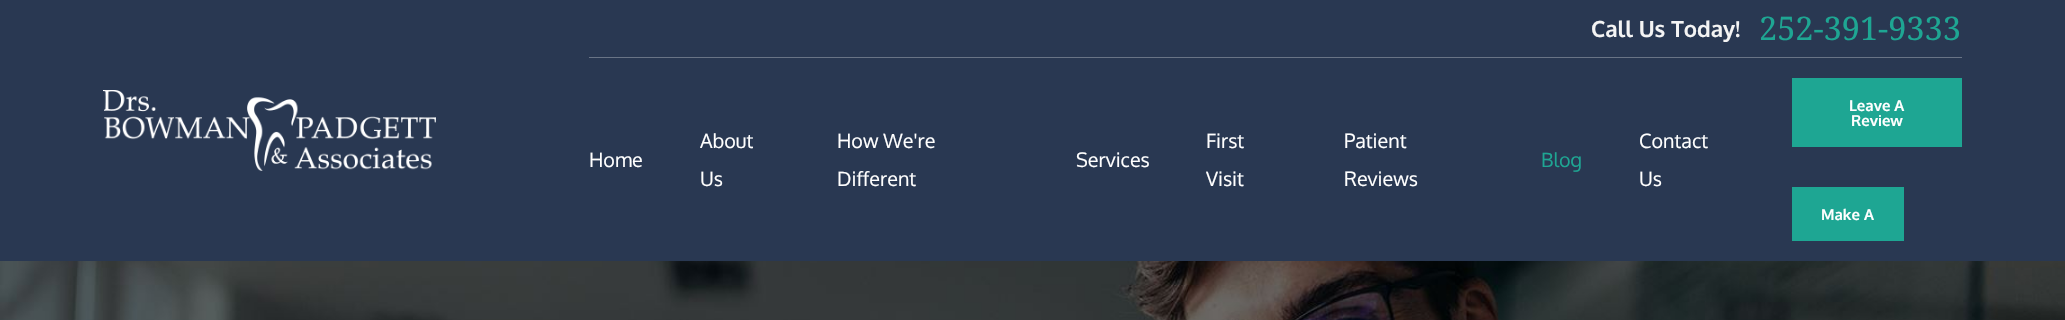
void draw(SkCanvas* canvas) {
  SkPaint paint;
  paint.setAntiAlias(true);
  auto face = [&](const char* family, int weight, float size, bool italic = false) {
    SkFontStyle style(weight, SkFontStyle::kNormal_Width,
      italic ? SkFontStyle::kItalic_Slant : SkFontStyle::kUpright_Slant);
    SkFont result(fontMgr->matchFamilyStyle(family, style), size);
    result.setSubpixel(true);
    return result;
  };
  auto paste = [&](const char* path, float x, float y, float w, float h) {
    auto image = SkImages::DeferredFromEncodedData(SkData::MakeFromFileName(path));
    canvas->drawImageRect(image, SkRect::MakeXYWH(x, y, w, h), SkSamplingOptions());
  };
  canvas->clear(0xffffffff);
  paint.setColor(0xff293852);
  canvas->drawRect(SkRect::MakeXYWH(0, 0, 2065, 261), paint);
  paste("img/1.png", 103, 90, 333, 81);
  {
    const struct { float x, y, w, h; SkColor color; } items[] = {
      {589, 57, 1373, 1, 0xff697486},
      {1792, 78, 170, 69, 0xff1ea693},
      {1792, 187, 112, 54, 0xff1ea693},
    };
    for (auto [x, y, w, h, color] : items) {
      paint.setColor(color);
      canvas->drawRect(SkRect::MakeXYWH(x, y, w, h), paint);
    }
  }
  paste("img/2.png", 0, 261, 2065, 59);
  auto f0 = face("Oxygen", 700, 22.25f);
  paint.setColor(0xfff4f4f4);
  canvas->drawString("Call Us Today!", 1591, 37, f0, paint);
  auto f1 = face("Noto Serif", 400, 32.5f);
  paint.setColor(0xff1ea693);
  canvas->drawString("252-391-9333", 1759, 40, f1, paint);
  auto f2 = face("Oxygen", 400, 19.75f);
  paint.setColor(0xffffffff);
  {
    const struct { const char* s; float x, y; } items[] = {
      {"Home", 589, 167},
      {"About", 700, 148},
      {"Us", 700, 186},
      {"How We're", 837, 148},
      {"Different", 837, 186},
      {"Services", 1076, 167},
      {"First", 1206, 148},
      {"Visit", 1206, 186},
      {"Patient", 1344, 148},
      {"Reviews", 1344, 186},
    };
    for (auto [s, x, y] : items) {
      canvas->drawString(s, x, y, f2, paint);
    }
  }
  paint.setColor(0xff1ea693);
  canvas->drawString("Blog", 1541, 167, f2, paint);
  paint.setColor(0xffffffff);
  canvas->drawString("Contact", 1639, 148, f2, paint);
  canvas->drawString("Us", 1639, 186, f2, paint);
  auto f3 = face("Oxygen", 700, 15);
  {
    const struct { const char* s; float x, y; } items[] = {
      {"Leave A", 1849, 111},
      {"Review", 1851, 126},
      {"Make A", 1821, 220},
    };
    for (auto [s, x, y] : items) {
      canvas->drawString(s, x, y, f3, paint);
    }
  }
}
